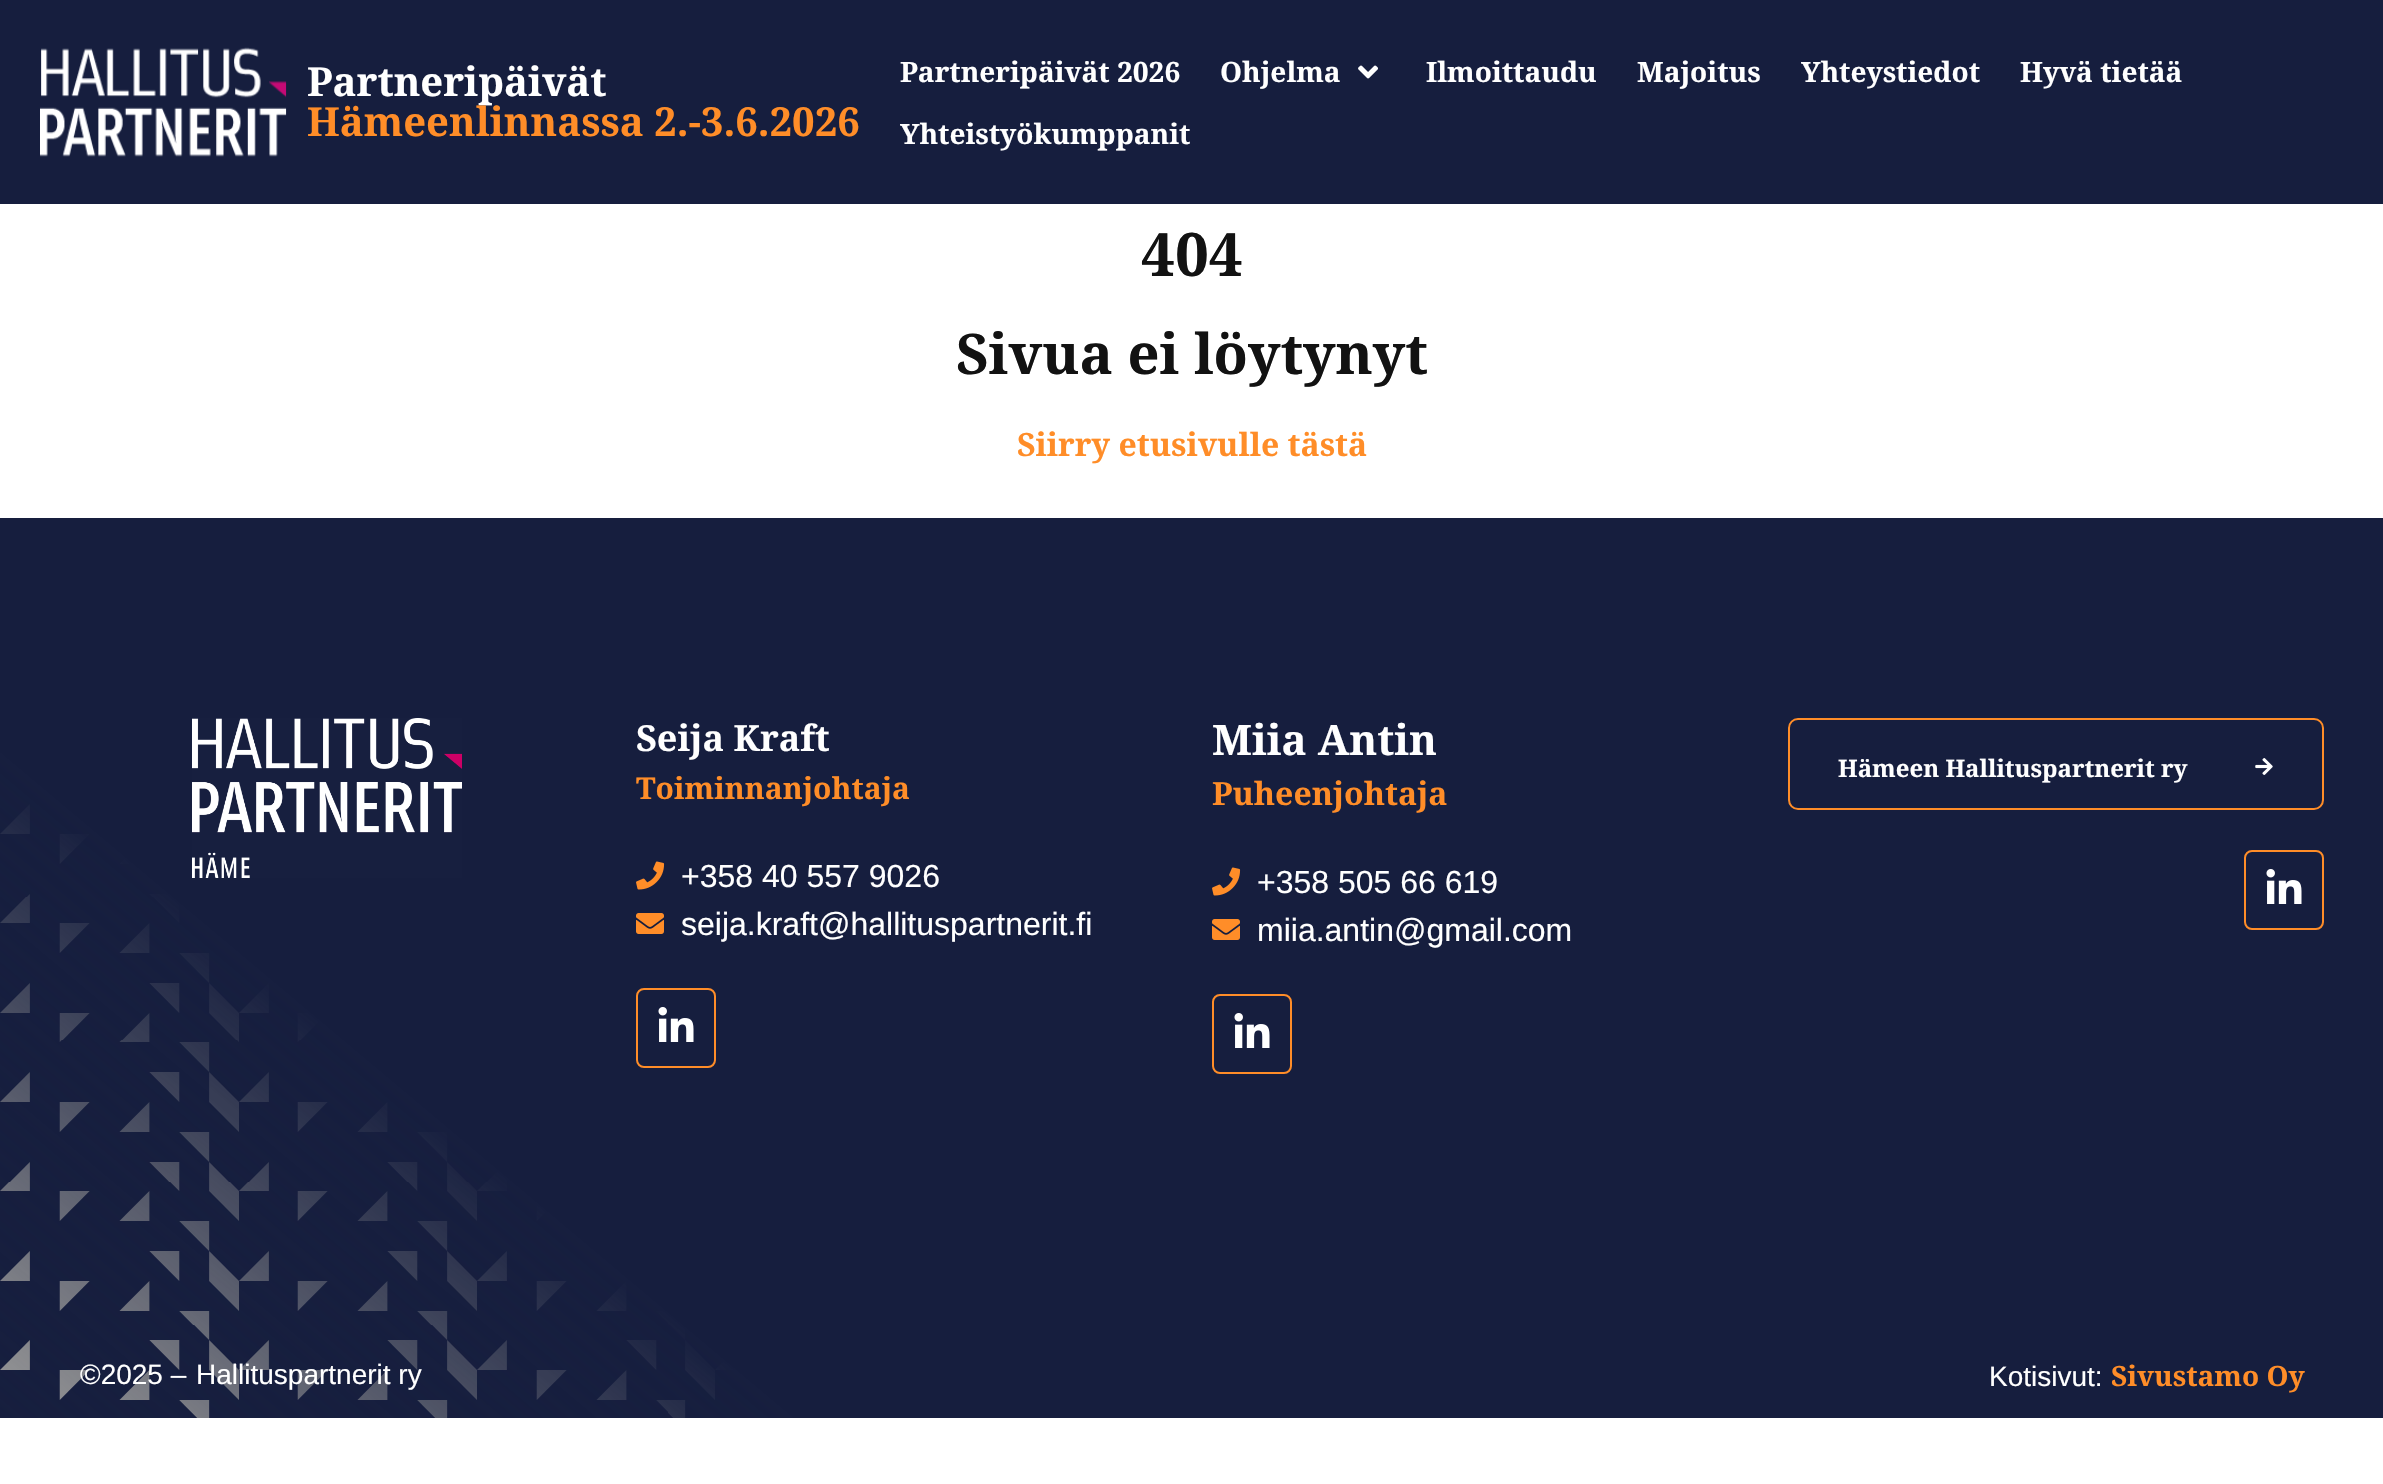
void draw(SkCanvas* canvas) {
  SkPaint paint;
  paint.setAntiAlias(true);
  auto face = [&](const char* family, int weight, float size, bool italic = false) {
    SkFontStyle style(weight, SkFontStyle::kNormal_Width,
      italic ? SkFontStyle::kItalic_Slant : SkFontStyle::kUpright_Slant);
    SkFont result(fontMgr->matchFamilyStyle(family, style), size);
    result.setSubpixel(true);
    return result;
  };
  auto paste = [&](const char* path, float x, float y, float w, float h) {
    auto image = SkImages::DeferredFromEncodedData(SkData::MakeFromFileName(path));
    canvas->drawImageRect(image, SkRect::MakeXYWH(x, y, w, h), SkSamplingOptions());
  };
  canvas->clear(0xffffffff);
  paint.setColor(0xff161e3e);
  canvas->drawRect(SkRect::MakeXYWH(0, 0, 2383, 204), paint);
  paste("img/1.png", 40, 47, 247, 110);
  paste("img/2.png", 1358, 65, 20, 14);
  canvas->drawRect(SkRect::MakeXYWH(0, 755, 790, 663), paint);
  paste("img/3.png", 0, 804, 733, 614);
  {
    const SkColor colors[] = {0xff161e3e, 0x00161e3e};
    const float stops[] = {0.77f, 1};
    const SkPoint ends[] = {{1906, 117}, {478, 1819}};
    paint.setShader(SkGradientShader::MakeLinear(ends, colors, stops, 2, SkTileMode::kClamp));
    paint.setAlpha(255);
  }
  canvas->drawRect(SkRect::MakeXYWH(0, 518, 2383, 900), paint);
  paste("img/4.png", 192, 718, 270, 160);
  paste("img/5.png", 636, 861, 29, 29);
  paste("img/6.png", 636, 913, 28, 21);
  paint.setStroke(true);
  paint.setStrokeWidth(2);
  paint.setShader(nullptr);
  paint.setColor(0xffff8d28);
  canvas->drawRoundRect(SkRect::MakeXYWH(637, 989, 78, 78), 7, 7, paint);
  paste("img/7.png", 658, 1007, 36, 35);
  paste("img/5.png", 1212, 867, 29, 29);
  paste("img/6.png", 1212, 919, 28, 21);
  canvas->drawRoundRect(SkRect::MakeXYWH(1213, 995, 78, 78), 7, 7, paint);
  paste("img/7.png", 1234, 1013, 36, 35);
  canvas->drawRoundRect(SkRect::MakeXYWH(1789, 719, 534, 90), 9, 9, paint);
  paste("img/8.png", 2255, 758, 18, 17);
  canvas->drawRoundRect(SkRect::MakeXYWH(2245, 851, 78, 78), 7, 7, paint);
  paste("img/7.png", 2266, 869, 36, 35);
  auto f0 = face("Noto Serif", 700, 40);
  paint.setStroke(false);
  paint.setColor(0xffffffff);
  canvas->drawString("Partneripäivät", 307, 96, f0, paint);
  paint.setColor(0xffff8d28);
  canvas->drawString("Hämeenlinnassa 2.-3.6.2026", 307, 136, f0, paint);
  auto f1 = face("Noto Serif", 700, 28);
  paint.setColor(0xffffffff);
  {
    const struct { const char* s; float x, y; } items[] = {
      {"Partneripäivät 2026", 900, 82},
      {"Ohjelma", 1220, 82},
      {"Ilmoittaudu", 1426, 82},
      {"Majoitus", 1637, 82},
      {"Yhteystiedot", 1801, 82},
      {"Hyvä tietää", 2020, 82},
      {"Yhteistyökumppanit", 900, 144},
    };
    for (auto [s, x, y] : items) {
      canvas->drawString(s, x, y, f1, paint);
    }
  }
  auto f2 = face("Noto Serif", 700, 60);
  paint.setColor(0xff121212);
  canvas->drawString("404", 1141, 276, f2, paint);
  auto f3 = face("Noto Serif", 700, 56);
  canvas->drawString("Sivua ei löytynyt", 956, 374, f3, paint);
  auto f4 = face("Noto Serif", 700, 32);
  paint.setColor(0xffff8d28);
  canvas->drawString("Siirry etusivulle tästä", 1017, 456, f4, paint);
  auto f5 = face("Noto Serif", 700, 36);
  paint.setColor(0xffffffff);
  canvas->drawString("Seija Kraft", 636, 751, f5, paint);
  auto f6 = face("Noto Serif", 700, 30);
  paint.setColor(0xffff8d28);
  canvas->drawString("Toiminnanjohtaja", 636, 799, f6, paint);
  auto f7 = face("Liberation Sans", 400, 32);
  paint.setColor(0xffffffff);
  canvas->drawString("+358 40 557 9026", 681, 887, f7, paint);
  canvas->drawString("seija.kraft@hallituspartnerit.fi", 681, 935, f7, paint);
  auto f8 = face("Noto Serif", 700, 42);
  canvas->drawString("Miia Antin", 1212, 755, f8, paint);
  paint.setColor(0xffff8d28);
  canvas->drawString("Puheenjohtaja", 1212, 805, f4, paint);
  paint.setColor(0xffffffff);
  canvas->drawString("+358 505 66 619", 1257, 893, f7, paint);
  canvas->drawString("miia.antin@gmail.com", 1257, 941, f7, paint);
  auto f9 = face("Noto Serif", 700, 24);
  canvas->drawString("Hämeen Hallituspartnerit ry", 1838, 777, f9, paint);
  auto f10 = face("Liberation Sans", 400, 28);
  {
    const struct { const char* s; float x, y; } items[] = {
      {"©2025 –", 80, 1384},
      {"Hallituspartnerit ry", 196, 1384},
      {"Kotisivut:", 1989, 1386},
    };
    for (auto [s, x, y] : items) {
      canvas->drawString(s, x, y, f10, paint);
    }
  }
  paint.setColor(0xffff8d28);
  canvas->drawString("Sivustamo Oy", 2111, 1386, f1, paint);
}
